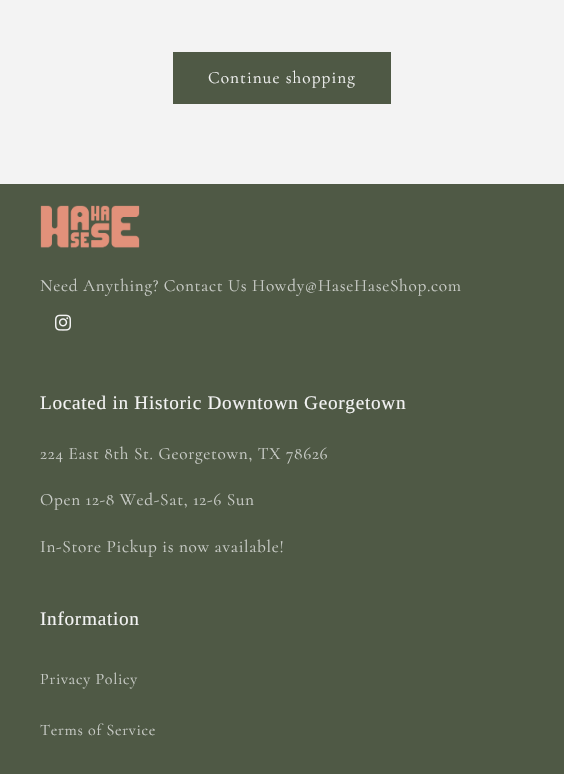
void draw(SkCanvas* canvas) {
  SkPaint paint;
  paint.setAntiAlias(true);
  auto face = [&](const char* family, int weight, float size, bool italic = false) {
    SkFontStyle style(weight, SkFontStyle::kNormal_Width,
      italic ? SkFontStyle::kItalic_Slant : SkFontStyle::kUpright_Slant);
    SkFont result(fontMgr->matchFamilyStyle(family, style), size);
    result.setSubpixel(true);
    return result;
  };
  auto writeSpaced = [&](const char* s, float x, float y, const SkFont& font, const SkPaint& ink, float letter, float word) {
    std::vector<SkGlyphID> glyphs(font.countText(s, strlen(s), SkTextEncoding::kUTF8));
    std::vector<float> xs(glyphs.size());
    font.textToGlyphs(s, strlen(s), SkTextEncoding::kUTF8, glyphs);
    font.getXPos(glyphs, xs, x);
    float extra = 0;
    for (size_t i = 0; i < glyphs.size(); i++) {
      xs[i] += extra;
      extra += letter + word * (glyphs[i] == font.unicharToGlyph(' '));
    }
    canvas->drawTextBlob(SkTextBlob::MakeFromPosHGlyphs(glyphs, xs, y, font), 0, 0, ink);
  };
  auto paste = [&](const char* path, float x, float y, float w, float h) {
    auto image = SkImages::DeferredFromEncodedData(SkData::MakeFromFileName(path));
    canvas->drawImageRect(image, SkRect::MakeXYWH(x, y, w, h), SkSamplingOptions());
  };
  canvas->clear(0xfff3f3f3);
  paint.setColor(0xff4f5945);
  canvas->drawRect(SkRect::MakeXYWH(173, 52, 218, 52), paint);
  canvas->drawRect(SkRect::MakeXYWH(0, 184, 564, 590), paint);
  paste("img/1.png", 40, 205, 100, 43);
  paste("img/2.png", 55, 314, 16, 17);
  auto f0 = face("Cormorant", 400, 17.25f);
  paint.setColor(0xfff3f3f3);
  writeSpaced("Continue shopping", 208, 83, f0, paint, 1.1f, 0);
  paint.setColor(0xffcacdc8);
  writeSpaced("Need Anything? Contact Us Howdy@HaseHaseShop.com", 40, 291, f0, paint, 0.7f, 0);
  auto f1 = face("Liberation Serif", 400, 19.25f);
  paint.setColor(0xfff3f3f3);
  writeSpaced("Located in Historic Downtown Georgetown", 40, 409, f1, paint, 0.7f, 0);
  paint.setColor(0xffcacdc8);
  {
    const struct { const char* s; float x, y; } items[] = {
      {"224 East 8th St. Georgetown, TX 78626", 40, 459},
      {"Open 12-8 Wed-Sat, 12-6 Sun", 40, 505},
      {"In-Store Pickup is now available!", 40, 552},
    };
    for (auto [s, x, y] : items) {
      writeSpaced(s, x, y, f0, paint, 0.7f, 0);
    }
  }
  paint.setColor(0xfff3f3f3);
  writeSpaced("Information", 40, 625, f1, paint, 0.7f, 0);
  auto f2 = face("Cormorant", 400, 16);
  paint.setColor(0xffcacdc8);
  writeSpaced("Privacy Policy", 40, 684, f2, paint, 0.7f, 0);
  writeSpaced("Terms of Service", 40, 735, f2, paint, 0.7f, 0);
}
